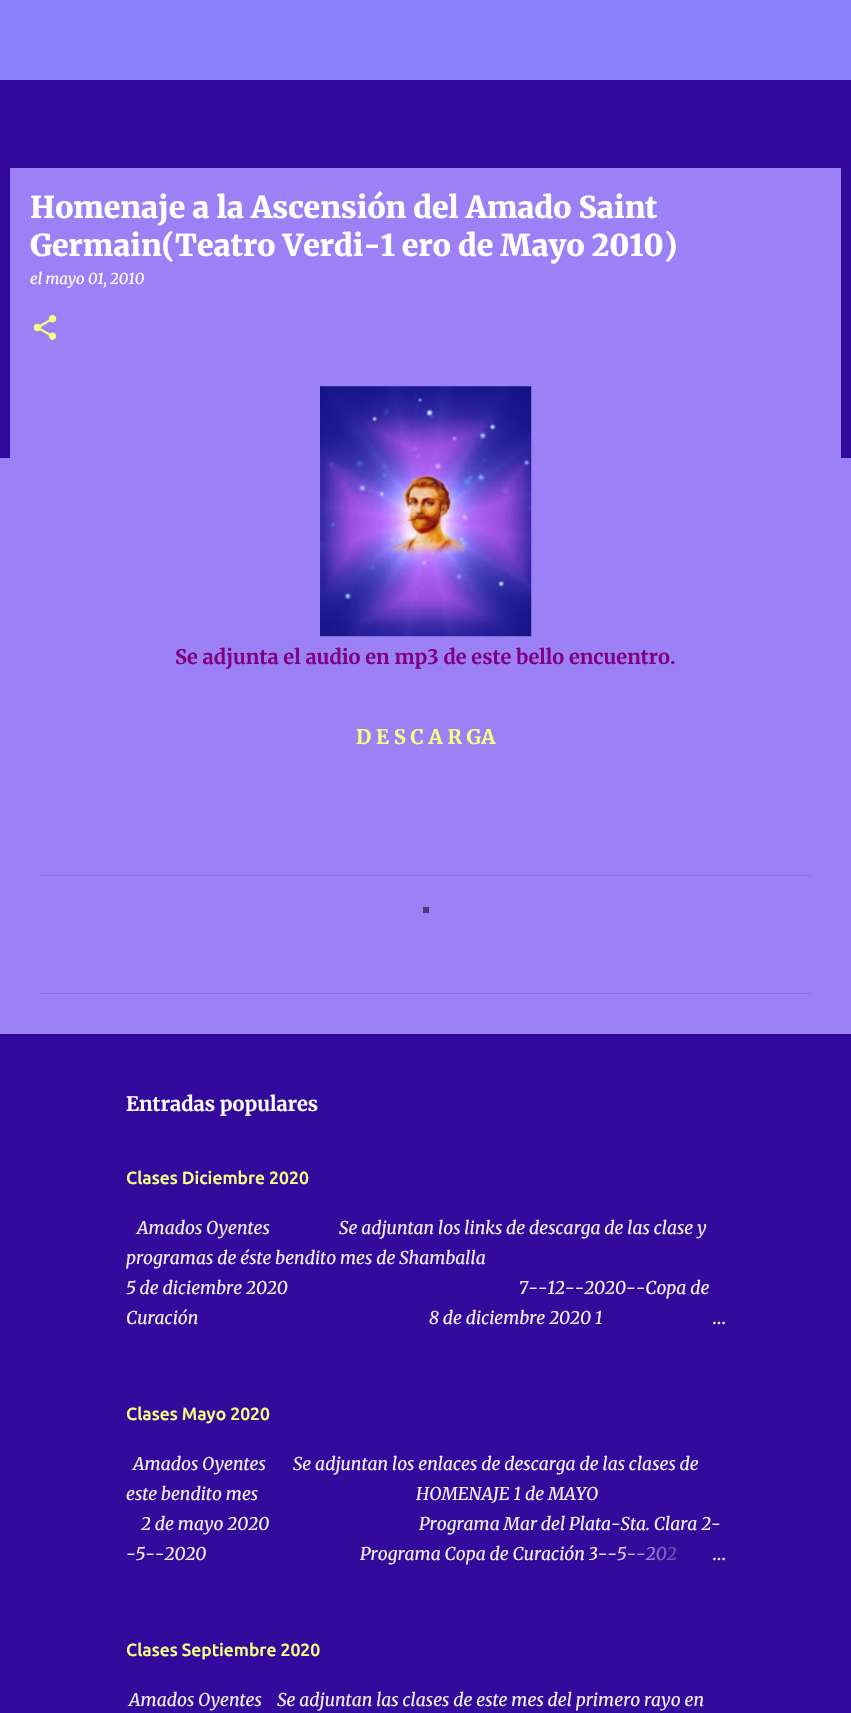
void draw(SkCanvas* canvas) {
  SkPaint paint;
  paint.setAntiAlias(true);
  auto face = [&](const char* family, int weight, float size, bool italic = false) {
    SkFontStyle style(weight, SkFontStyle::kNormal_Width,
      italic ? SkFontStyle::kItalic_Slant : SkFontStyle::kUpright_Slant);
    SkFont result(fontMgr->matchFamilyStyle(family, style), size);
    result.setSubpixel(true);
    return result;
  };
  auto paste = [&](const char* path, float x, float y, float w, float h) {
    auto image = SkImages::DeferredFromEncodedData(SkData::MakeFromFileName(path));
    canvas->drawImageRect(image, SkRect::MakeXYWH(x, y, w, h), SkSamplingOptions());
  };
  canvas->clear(0xff340a9c);
  {
    const struct { float x, y, w, h; SkColor color; } items[] = {
      {0, 0, 851, 80, 0xff8b81ff},
      {0, 458, 851, 576, 0xff9b81f5},
      {10, 168, 831, 290, 0xff9b81f5},
    };
    for (auto [x, y, w, h, color] : items) {
      paint.setColor(color);
      canvas->drawRect(SkRect::MakeXYWH(x, y, w, h), paint);
    }
  }
  paste("img/1.png", 33, 315, 24, 25);
  paste("img/2.png", 320, 386, 212, 251);
  {
    const struct { float x, y, w, h; SkColor color; } items[] = {
      {40, 875, 771, 1, 0xff8872d8},
      {40, 993, 771, 1, 0xff8872d8},
      {423, 907, 6, 6, 0xff473b71},
    };
    for (auto [x, y, w, h, color] : items) {
      paint.setColor(color);
      canvas->drawRect(SkRect::MakeXYWH(x, y, w, h), paint);
    }
  }
  auto f0 = face("Merriweather", 900, 30);
  paint.setColor(0xffffffff);
  canvas->drawString("Homenaje a la Ascensión del Amado Saint", 30, 218, f0, paint);
  canvas->drawString("Germain(Teatro Verdi-1 ero de Mayo 2010)", 30, 256, f0, paint);
  auto f1 = face("Merriweather", 400, 15, true);
  canvas->drawString("el mayo 01, 2010", 30, 284, f1, paint);
  auto f2 = face("Merriweather", 700, 20);
  paint.setColor(0xff800080);
  canvas->drawString("Se adjunta el audio en mp3 de este bello encuentro.", 175, 664, f2, paint);
  paint.setColor(0xfff4ff81);
  canvas->drawString("D E S C A R GA", 356, 744, f2, paint);
  paint.setColor(0xffffffff);
  canvas->drawString("Entradas populares", 126, 1111, f2, paint);
  auto f3 = face("Ubuntu", 500, 17.5f);
  paint.setColor(0xfff4ff81);
  canvas->drawString("Clases Diciembre 2020", 126, 1184, f3, paint);
  auto f4 = face("Merriweather", 400, 17.5f, true);
  paint.setColor(0xffeeeeee);
  {
    const struct { const char* s; float x, y; } items[] = {
      {"Amados Oyentes                  Se adjuntan los links de descarga de las clase y", 137, 1234},
      {"programas de éste bendito mes de Shamballa", 126, 1264},
      {"5 de diciembre 2020                                                            7--12--2020--Copa de", 126, 1294},
      {"Curación", 126, 1324},
      {"8 de diciembre 2020 1", 429, 1324},
    };
    for (auto [s, x, y] : items) {
      canvas->drawString(s, x, y, f4, paint);
    }
  }
  auto f5 = face("Merriweather", 400, 17.5f);
  canvas->drawString("…", 712, 1324, f5, paint);
  paint.setColor(0xfff4ff81);
  canvas->drawString("Clases Mayo 2020", 126, 1420, f3, paint);
  paint.setColor(0xffeeeeee);
  {
    const struct { const char* s; float x, y; } items[] = {
      {"Amados Oyentes", 133, 1470},
      {"Se adjuntan los enlaces de descarga de las clases de", 293, 1470},
      {"este bendito mes", 126, 1500},
      {"HOMENAJE 1 de MAYO", 416, 1500},
      {"2 de mayo 2020", 141, 1530},
      {"Programa Mar del Plata-Sta. Clara 2-", 419, 1530},
      {"-5--2020", 126, 1560},
      {"Programa Copa de Curación 3--5--202", 360, 1560},
    };
    for (auto [s, x, y] : items) {
      canvas->drawString(s, x, y, f4, paint);
    }
  }
  {
    const SkColor colors[] = {0xff340a9c, 0xff340a9c, 0x00340a9c};
    const float stops[] = {0, 0.2f, 1};
    const SkPoint ends[] = {{726, 1554}, {606, 1554}};
    paint.setShader(SkGradientShader::MakeLinear(ends, colors, stops, 3, SkTileMode::kClamp));
    paint.setAlpha(255);
  }
  canvas->drawRect(SkRect::MakeXYWH(609, 1546, 67, 15), paint);
  paint.setShader(nullptr);
  paint.setColor(0xffeeeeee);
  canvas->drawString("…", 712, 1560, f5, paint);
  paint.setColor(0xfff4ff81);
  canvas->drawString("Clases Septiembre 2020", 126, 1656, f3, paint);
  paint.setColor(0xffeeeeee);
  canvas->drawString("Amados Oyentes    Se adjuntan las clases de este mes del primero rayo en", 129, 1706, f4, paint);
}
